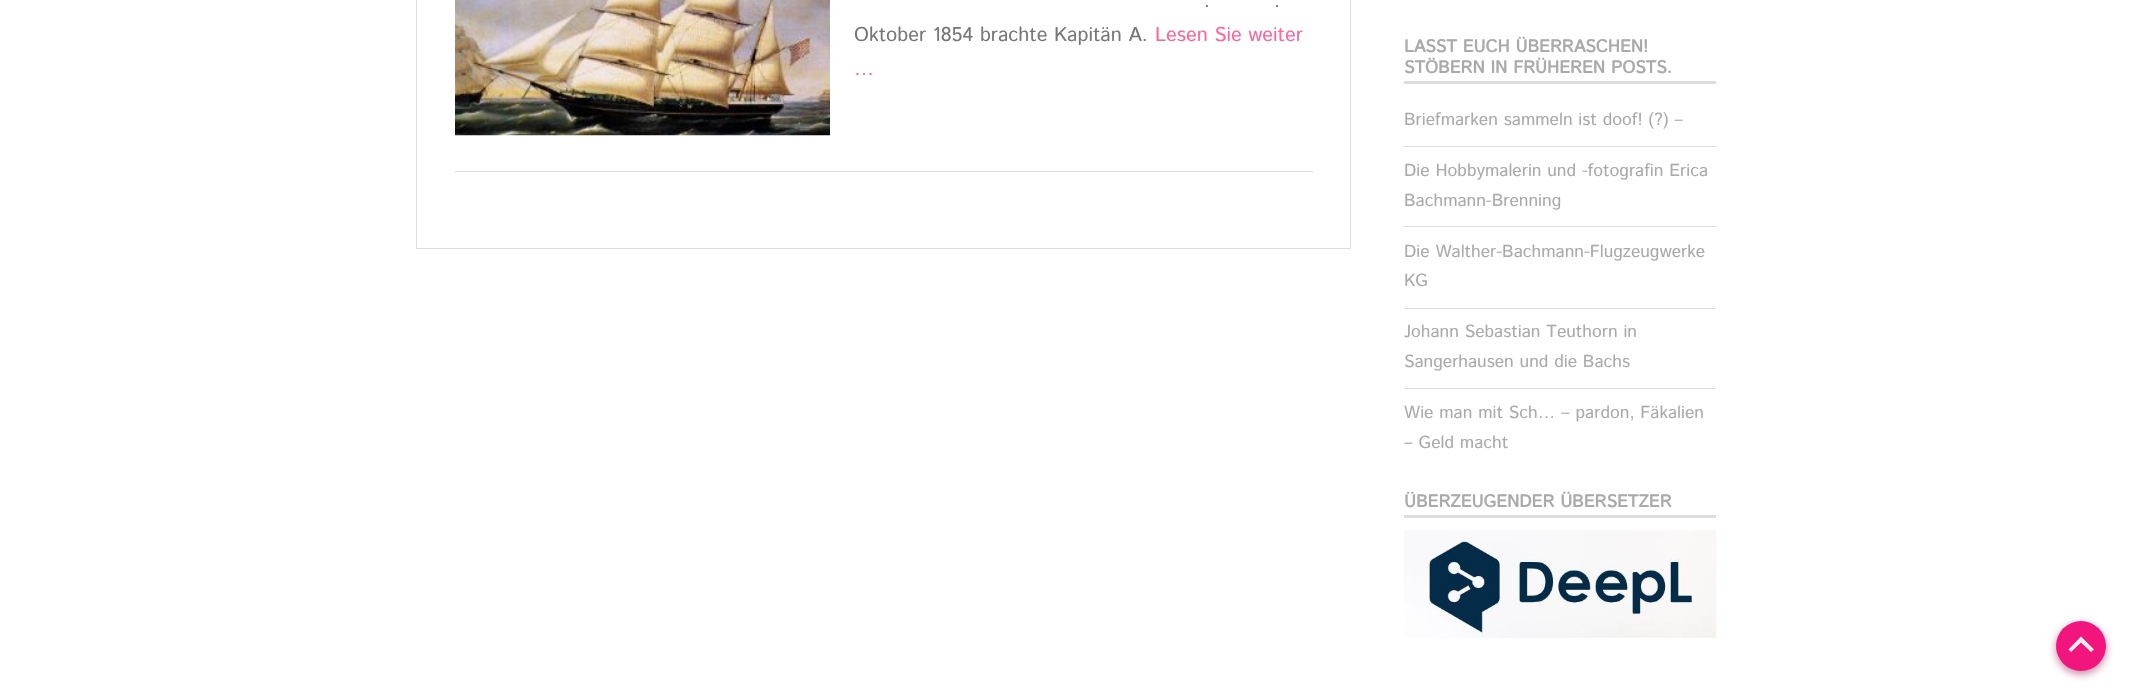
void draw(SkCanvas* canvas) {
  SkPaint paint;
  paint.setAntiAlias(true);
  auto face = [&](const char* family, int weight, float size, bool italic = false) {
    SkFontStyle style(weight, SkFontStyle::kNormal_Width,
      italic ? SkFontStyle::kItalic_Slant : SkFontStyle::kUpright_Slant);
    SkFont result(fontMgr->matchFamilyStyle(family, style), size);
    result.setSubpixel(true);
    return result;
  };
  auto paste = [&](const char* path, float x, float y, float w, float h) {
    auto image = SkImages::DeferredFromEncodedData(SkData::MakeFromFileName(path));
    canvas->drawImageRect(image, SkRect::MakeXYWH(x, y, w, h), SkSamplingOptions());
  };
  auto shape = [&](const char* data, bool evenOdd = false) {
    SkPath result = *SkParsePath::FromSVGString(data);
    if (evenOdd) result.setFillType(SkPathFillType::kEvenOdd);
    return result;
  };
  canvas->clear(0xffffffff);
  paint.setStroke(true);
  paint.setStrokeWidth(1);
  paint.setColor(0xffdddddd);
  canvas->drawRect(SkRect::MakeXYWH(416.5f, -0.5f, 934, 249), paint);
  paste("img/1.png", 455, 0, 375, 136);
  paint.setStroke(false);
  {
    const struct { float x, y, w, h; SkColor color; } items[] = {
      {455, 171, 858, 1, 0xffdddddd},
      {1404, 81, 312, 3, 0xffdddddd},
      {1404, 146, 312, 1, 0xffdddddd},
      {1404, 226, 312, 1, 0xffdddddd},
      {1404, 308, 312, 1, 0xffdddddd},
      {1404, 388, 312, 1, 0xffdddddd},
      {1404, 515, 312, 3, 0xffdddddd},
    };
    for (auto [x, y, w, h, color] : items) {
      paint.setColor(color);
      canvas->drawRect(SkRect::MakeXYWH(x, y, w, h), paint);
    }
  }
  paste("img/2.png", 1404, 530, 313, 108);
  paint.setColor(0x80900144);
  paint.setMaskFilter(SkMaskFilter::MakeBlur(kNormal_SkBlurStyle, 4));
  canvas->drawRoundRect(SkRect::MakeXYWH(2056, 624, 50, 50), 25, 25, paint);
  paint.setMaskFilter(nullptr);
  paint.setColor(0xfff2157d);
  canvas->drawCircle(2081, 646, 25, paint);
  paint.setColor(0xffeeeeee);
  canvas->drawPath(shape("M2091 652L2081 642.5L2071 652L2068.5 649.5L2081 636.5L2094 649.5Z"), paint);
  auto f0 = face("Istok Web", 400, 20);
  paint.setColor(0xff777777);
  {
    const struct { const char* s; float x, y; } items[] = {
      {".", 1204, 7},
      {".", 1274, 7},
      {"Oktober 1854 brachte Kapitän A.", 854, 41},
    };
    for (auto [s, x, y] : items) {
      canvas->drawString(s, x, y, f0, paint);
    }
  }
  paint.setColor(0xffff6699);
  canvas->drawString("Lesen Sie weiter", 1155, 41, f0, paint);
  canvas->drawString("…", 854, 75, f0, paint);
  auto f1 = face("Istok Web", 700, 17.5f);
  paint.setColor(0xffaaaaaa);
  canvas->drawString("LASST EUCH ÜBERRASCHEN!", 1404, 52, f1, paint);
  canvas->drawString("STÖBERN IN FRÜHEREN POSTS.", 1404, 73, f1, paint);
  auto f2 = face("Istok Web", 400, 17.5f);
  {
    const struct { const char* s; float x, y; } items[] = {
      {"Briefmarken sammeln ist doof! (?) –", 1404, 125},
      {"Die Hobbymalerin und -fotografin Erica", 1404, 176},
      {"Bachmann-Brenning", 1404, 206},
      {"Die Walther-Bachmann-Flugzeugwerke", 1404, 257},
      {"KG", 1404, 286},
      {"Johann Sebastian Teuthorn in", 1404, 337},
      {"Sangerhausen und die Bachs", 1404, 367},
      {"Wie man mit Sch… – pardon, Fäkalien", 1404, 418},
      {"– Geld macht", 1404, 448},
    };
    for (auto [s, x, y] : items) {
      canvas->drawString(s, x, y, f2, paint);
    }
  }
  canvas->drawString("ÜBERZEUGENDER ÜBERSETZER", 1404, 507, f1, paint);
}
